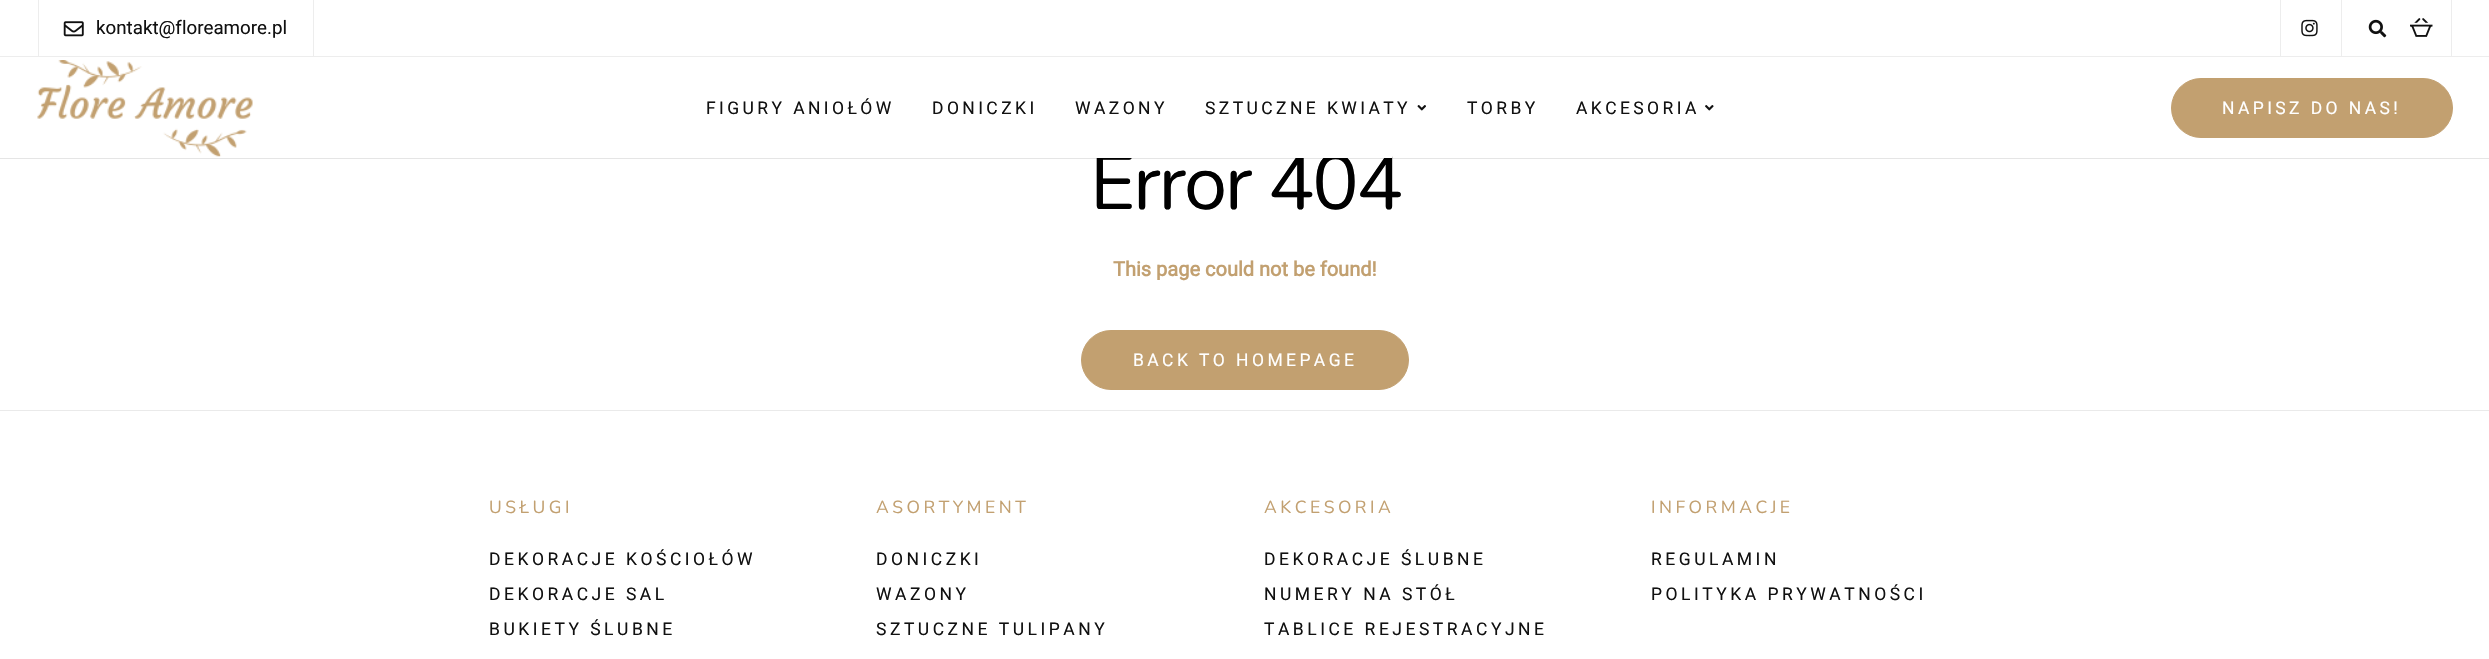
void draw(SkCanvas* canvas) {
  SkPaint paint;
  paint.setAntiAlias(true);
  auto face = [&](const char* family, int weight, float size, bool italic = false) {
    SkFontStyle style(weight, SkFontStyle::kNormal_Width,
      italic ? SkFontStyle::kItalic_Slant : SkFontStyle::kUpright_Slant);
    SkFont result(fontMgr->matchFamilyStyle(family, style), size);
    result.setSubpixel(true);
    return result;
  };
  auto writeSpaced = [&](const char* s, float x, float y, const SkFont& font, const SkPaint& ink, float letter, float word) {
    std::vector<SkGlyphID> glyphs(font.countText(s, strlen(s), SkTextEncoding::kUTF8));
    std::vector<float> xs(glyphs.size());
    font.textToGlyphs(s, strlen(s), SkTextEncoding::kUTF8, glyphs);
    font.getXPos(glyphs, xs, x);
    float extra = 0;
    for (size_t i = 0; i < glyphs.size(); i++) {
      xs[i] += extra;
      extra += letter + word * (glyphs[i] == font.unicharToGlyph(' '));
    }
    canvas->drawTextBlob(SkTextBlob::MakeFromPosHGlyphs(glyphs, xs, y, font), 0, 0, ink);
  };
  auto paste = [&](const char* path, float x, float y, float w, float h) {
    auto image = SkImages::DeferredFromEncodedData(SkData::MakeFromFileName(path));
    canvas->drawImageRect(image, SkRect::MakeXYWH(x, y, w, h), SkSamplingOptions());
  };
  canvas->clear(0xffffffff);
  {
    const struct { float x, y, w, h; SkColor color; } items[] = {
      {0, 158, 2489, 1, 0x1a000000},
      {0, 56, 2489, 1, 0xffededed},
      {313, 0, 1, 56, 0xffededed},
      {38, 0, 1, 56, 0xffededed},
    };
    for (auto [x, y, w, h, color] : items) {
      paint.setColor(color);
      canvas->drawRect(SkRect::MakeXYWH(x, y, w, h), paint);
    }
  }
  paste("img/1.png", 63, 21, 21, 16);
  canvas->drawRect(SkRect::MakeXYWH(2280, 0, 1, 56), paint);
  paste("img/2.png", 2301, 19, 17, 18);
  canvas->drawRect(SkRect::MakeXYWH(2451, 0, 1, 56), paint);
  canvas->drawRect(SkRect::MakeXYWH(2341, 0, 1, 56), paint);
  paste("img/3.png", 2368, 19, 19, 19);
  paste("img/4.png", 2410, 18, 23, 19);
  paste("img/5.png", 37, 60, 216, 97);
  paste("img/6.png", 1417, 105, 9, 6);
  paste("img/7.png", 1705, 105, 9, 6);
  paint.setColor(0xffc2a070);
  canvas->drawRoundRect(SkRect::MakeXYWH(2171.5f, 78.5f, 281, 59), 29.5f, 29.5f, paint);
  paint.setStroke(true);
  paint.setStrokeWidth(1);
  canvas->drawRoundRect(SkRect::MakeXYWH(2171.5f, 78.5f, 281, 59), 29.5f, 29.5f, paint);
  paint.setStroke(false);
  canvas->drawRoundRect(SkRect::MakeXYWH(1081.5f, 330.5f, 327, 59), 29.5f, 29.5f, paint);
  paint.setStroke(true);
  canvas->drawRoundRect(SkRect::MakeXYWH(1081.5f, 330.5f, 327, 59), 29.5f, 29.5f, paint);
  paint.setStroke(false);
  paint.setColor(0xffeaeaea);
  canvas->drawRect(SkRect::MakeXYWH(0, 410, 2489, 1), paint);
  auto f0 = face("Roboto", 400, 18.75f);
  paint.setColor(0xff111111);
  canvas->drawString("kontakt@floreamore.pl", 96, 34, f0, paint);
  auto f1 = face("Roboto", 400, 17.5f);
  {
    const struct { const char* s; float x, y; } items[] = {
      {"FIGURY ANIOŁÓW", 706, 114},
      {"DONICZKI", 932, 114},
      {"WAZONY", 1075, 114},
      {"SZTUCZNE KWIATY", 1205, 114},
      {"TORBY", 1467, 114},
      {"AKCESORIA", 1576, 114},
    };
    for (auto [s, x, y] : items) {
      writeSpaced(s, x, y, f1, paint, 3.4f, 0);
    }
  }
  paint.setColor(0xffffffff);
  writeSpaced("NAPISZ DO NAS!", 2222, 114, f1, paint, 3.4f, 0);
  auto f2 = face("Nunito", 200, 77.5f);
  paint.setColor(0xff000000);
  writeSpaced("Error 404", 1090, 209, f2, paint, -2.25f, 0);
  paint.setColor(0xffffffff);
  canvas->drawRect(SkRect::MakeXYWH(1096, 153, 296, 5), paint);
  auto f3 = face("Roboto", 700, 20);
  paint.setColor(0xffc2a070);
  canvas->drawString("This page could not be found!", 1113, 276, f3, paint);
  paint.setColor(0xffffffff);
  writeSpaced("BACK TO HOMEPAGE", 1133, 366, f1, paint, 3.4f, 0);
  auto f4 = face("Nunito", 200, 17.5f);
  paint.setColor(0xffc2a070);
  writeSpaced("USŁUGI", 489, 513, f4, paint, 3.5f, 0);
  paint.setColor(0xff111111);
  {
    const struct { const char* s; float x, y; } items[] = {
      {"DEKORACJE KOŚCIOŁÓW", 489, 565},
      {"DEKORACJE SAL", 489, 600},
      {"BUKIETY ŚLUBNE", 489, 635},
    };
    for (auto [s, x, y] : items) {
      writeSpaced(s, x, y, f1, paint, 3.5f, 0);
    }
  }
  paint.setColor(0xffc2a070);
  writeSpaced("ASORTYMENT", 876, 513, f4, paint, 3.5f, 0);
  paint.setColor(0xff111111);
  {
    const struct { const char* s; float x, y; } items[] = {
      {"DONICZKI", 876, 565},
      {"WAZONY", 876, 600},
      {"SZTUCZNE TULIPANY", 876, 635},
    };
    for (auto [s, x, y] : items) {
      writeSpaced(s, x, y, f1, paint, 3.5f, 0);
    }
  }
  paint.setColor(0xffc2a070);
  writeSpaced("AKCESORIA", 1264, 513, f4, paint, 3.5f, 0);
  paint.setColor(0xff111111);
  {
    const struct { const char* s; float x, y; } items[] = {
      {"DEKORACJE ŚLUBNE", 1264, 565},
      {"NUMERY NA STÓŁ", 1264, 600},
      {"TABLICE REJESTRACYJNE", 1264, 635},
    };
    for (auto [s, x, y] : items) {
      writeSpaced(s, x, y, f1, paint, 3.5f, 0);
    }
  }
  paint.setColor(0xffc2a070);
  writeSpaced("INFORMACJE", 1651, 513, f4, paint, 3.5f, 0);
  paint.setColor(0xff111111);
  writeSpaced("REGULAMIN", 1651, 565, f1, paint, 3.5f, 0);
  writeSpaced("POLITYKA PRYWATNOŚCI", 1651, 600, f1, paint, 3.5f, 0);
}
